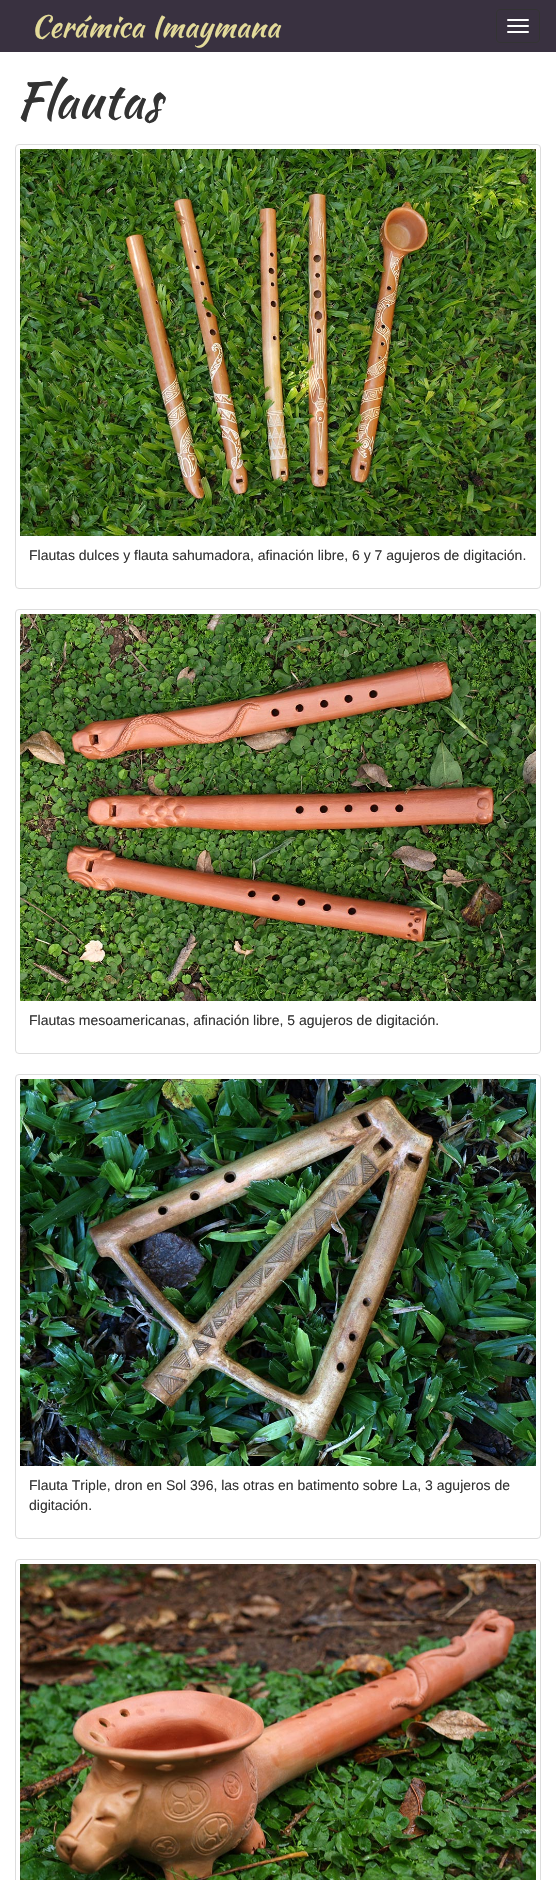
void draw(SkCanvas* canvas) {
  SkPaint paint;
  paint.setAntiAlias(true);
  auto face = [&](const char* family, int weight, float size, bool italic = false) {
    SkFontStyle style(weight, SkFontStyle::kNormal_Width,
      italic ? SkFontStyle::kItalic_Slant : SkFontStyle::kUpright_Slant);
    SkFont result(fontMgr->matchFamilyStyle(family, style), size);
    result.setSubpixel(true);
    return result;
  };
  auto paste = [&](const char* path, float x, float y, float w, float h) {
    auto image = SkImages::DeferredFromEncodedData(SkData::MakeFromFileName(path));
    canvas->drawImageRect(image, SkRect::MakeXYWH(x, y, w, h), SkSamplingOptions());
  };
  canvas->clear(0xffffffff);
  paint.setColor(0xff393140);
  canvas->drawRect(SkRect::MakeXYWH(0, 0, 556, 52), paint);
  paint.setStroke(true);
  paint.setStrokeWidth(1);
  paint.setColor(0xff333333);
  canvas->drawRoundRect(SkRect::MakeXYWH(496.5f, 9.5f, 43, 33), 3.5f, 3.5f, paint);
  paint.setStroke(false);
  paint.setColor(0xffffffff);
  canvas->drawRoundRect(SkRect::MakeXYWH(507, 19, 22, 2), 1, 1, paint);
  canvas->drawRoundRect(SkRect::MakeXYWH(507, 25, 22, 2), 1, 1, paint);
  canvas->drawRoundRect(SkRect::MakeXYWH(507, 31, 22, 2), 1, 1, paint);
  paint.setStroke(true);
  paint.setColor(0xffdddddd);
  canvas->drawRoundRect(SkRect::MakeXYWH(15.5f, 144.5f, 525, 444), 3.5f, 3.5f, paint);
  paste("img/1.png", 20, 149, 516, 387);
  canvas->drawRoundRect(SkRect::MakeXYWH(15.5f, 609.5f, 525, 444), 3.5f, 3.5f, paint);
  paste("img/2.png", 20, 614, 516, 387);
  canvas->drawRoundRect(SkRect::MakeXYWH(15.5f, 1074.5f, 525, 464), 3.5f, 3.5f, paint);
  paste("img/3.png", 20, 1079, 516, 387);
  canvas->drawRoundRect(SkRect::MakeXYWH(15.5f, 1559.5f, 525, 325), 3.5f, 3.5f, paint);
  paste("img/4.png", 20, 1564, 516, 316);
  auto f0 = face("Kaushan Script", 400, 30);
  paint.setStroke(false);
  paint.setColor(0xffe3da99);
  canvas->drawString("Cerámica Imaymana", 31, 37, f0, paint);
  auto f1 = face("Kaushan Script", 400, 50);
  paint.setColor(0xff333333);
  canvas->drawString("Flautas", 15, 118, f1, paint);
  auto f2 = face("Liberation Sans", 400, 14);
  {
    const struct { const char* s; float x, y; } items[] = {
      {"Flautas dulces y flauta sahumadora, afinación libre, 6 y 7 agujeros de digitación.", 29, 560},
      {"Flautas mesoamericanas, afinación libre, 5 agujeros de digitación.", 29, 1025},
      {"Flauta Triple, dron en Sol 396, las otras en batimento sobre La, 3 agujeros de", 29, 1490},
      {"digitación.", 29, 1510},
    };
    for (auto [s, x, y] : items) {
      canvas->drawString(s, x, y, f2, paint);
    }
  }
}
